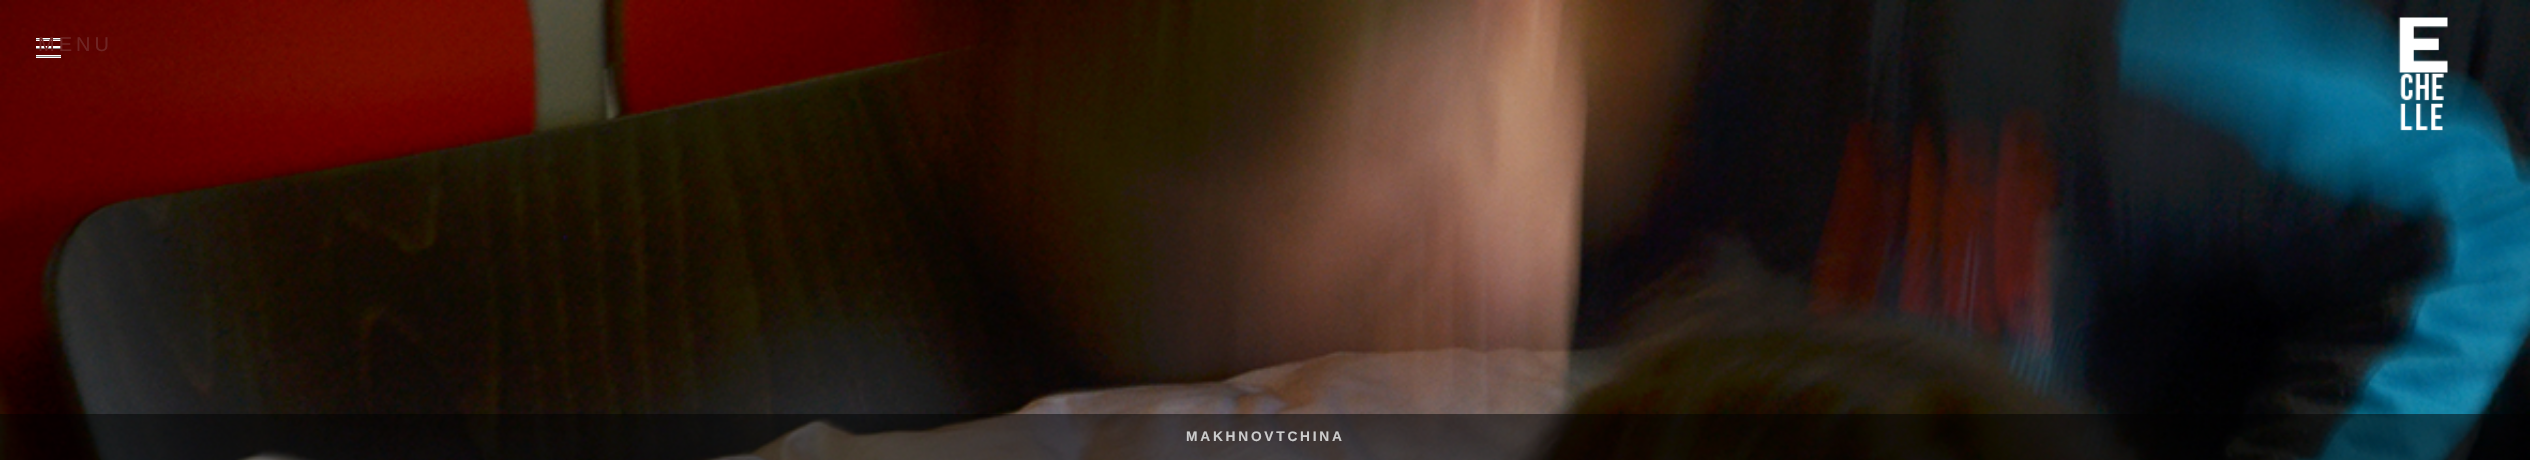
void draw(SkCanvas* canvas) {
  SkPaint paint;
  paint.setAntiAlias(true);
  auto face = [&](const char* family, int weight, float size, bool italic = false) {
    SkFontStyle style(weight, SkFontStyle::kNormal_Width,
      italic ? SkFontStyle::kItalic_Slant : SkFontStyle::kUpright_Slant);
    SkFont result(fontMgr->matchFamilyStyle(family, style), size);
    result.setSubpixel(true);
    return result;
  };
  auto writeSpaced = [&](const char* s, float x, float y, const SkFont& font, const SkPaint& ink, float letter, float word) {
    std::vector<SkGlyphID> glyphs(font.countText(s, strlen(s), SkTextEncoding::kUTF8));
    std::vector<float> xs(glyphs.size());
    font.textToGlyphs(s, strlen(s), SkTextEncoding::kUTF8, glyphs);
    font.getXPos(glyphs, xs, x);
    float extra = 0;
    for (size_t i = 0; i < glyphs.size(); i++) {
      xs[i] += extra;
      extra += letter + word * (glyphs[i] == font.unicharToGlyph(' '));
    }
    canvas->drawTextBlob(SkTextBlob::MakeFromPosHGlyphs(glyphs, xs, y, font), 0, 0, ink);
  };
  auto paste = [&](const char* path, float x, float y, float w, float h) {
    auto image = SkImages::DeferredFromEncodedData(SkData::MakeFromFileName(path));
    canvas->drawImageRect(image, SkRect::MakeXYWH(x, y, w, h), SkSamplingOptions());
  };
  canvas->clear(0xffffffff);
  paste("img/1.png", 0, 0, 2530, 460);
  {
    const struct { float x, y, w, h; SkColor color; } items[] = {
      {36, 38, 25, 3, 0xffffffff},
      {36, 39, 25, 1, 0xff808080},
      {36, 46, 25, 2, 0xffffffff},
      {36, 48, 25, 1, 0xff808080},
      {36, 55, 25, 3, 0xffffffff},
      {36, 56, 25, 1, 0xff808080},
    };
    for (auto [x, y, w, h, color] : items) {
      paint.setColor(color);
      canvas->drawRect(SkRect::MakeXYWH(x, y, w, h), paint);
    }
  }
  paste("img/2.png", 2398, 17, 50, 114);
  paint.setColor(0x80000000);
  canvas->drawRect(SkRect::MakeXYWH(0, 414, 2530, 46), paint);
  auto f0 = face("Liberation Sans", 400, 20);
  paint.setColor(0xff6f2423);
  writeSpaced("MENU", 38, 51, f0, paint, 4, 0);
  auto f1 = face("Liberation Sans", 700, 13.75f);
  paint.setColor(0xffcccccc);
  writeSpaced("MAKHNOVTCHINA", 1186, 441, f1, paint, 2.75f, 0);
}
